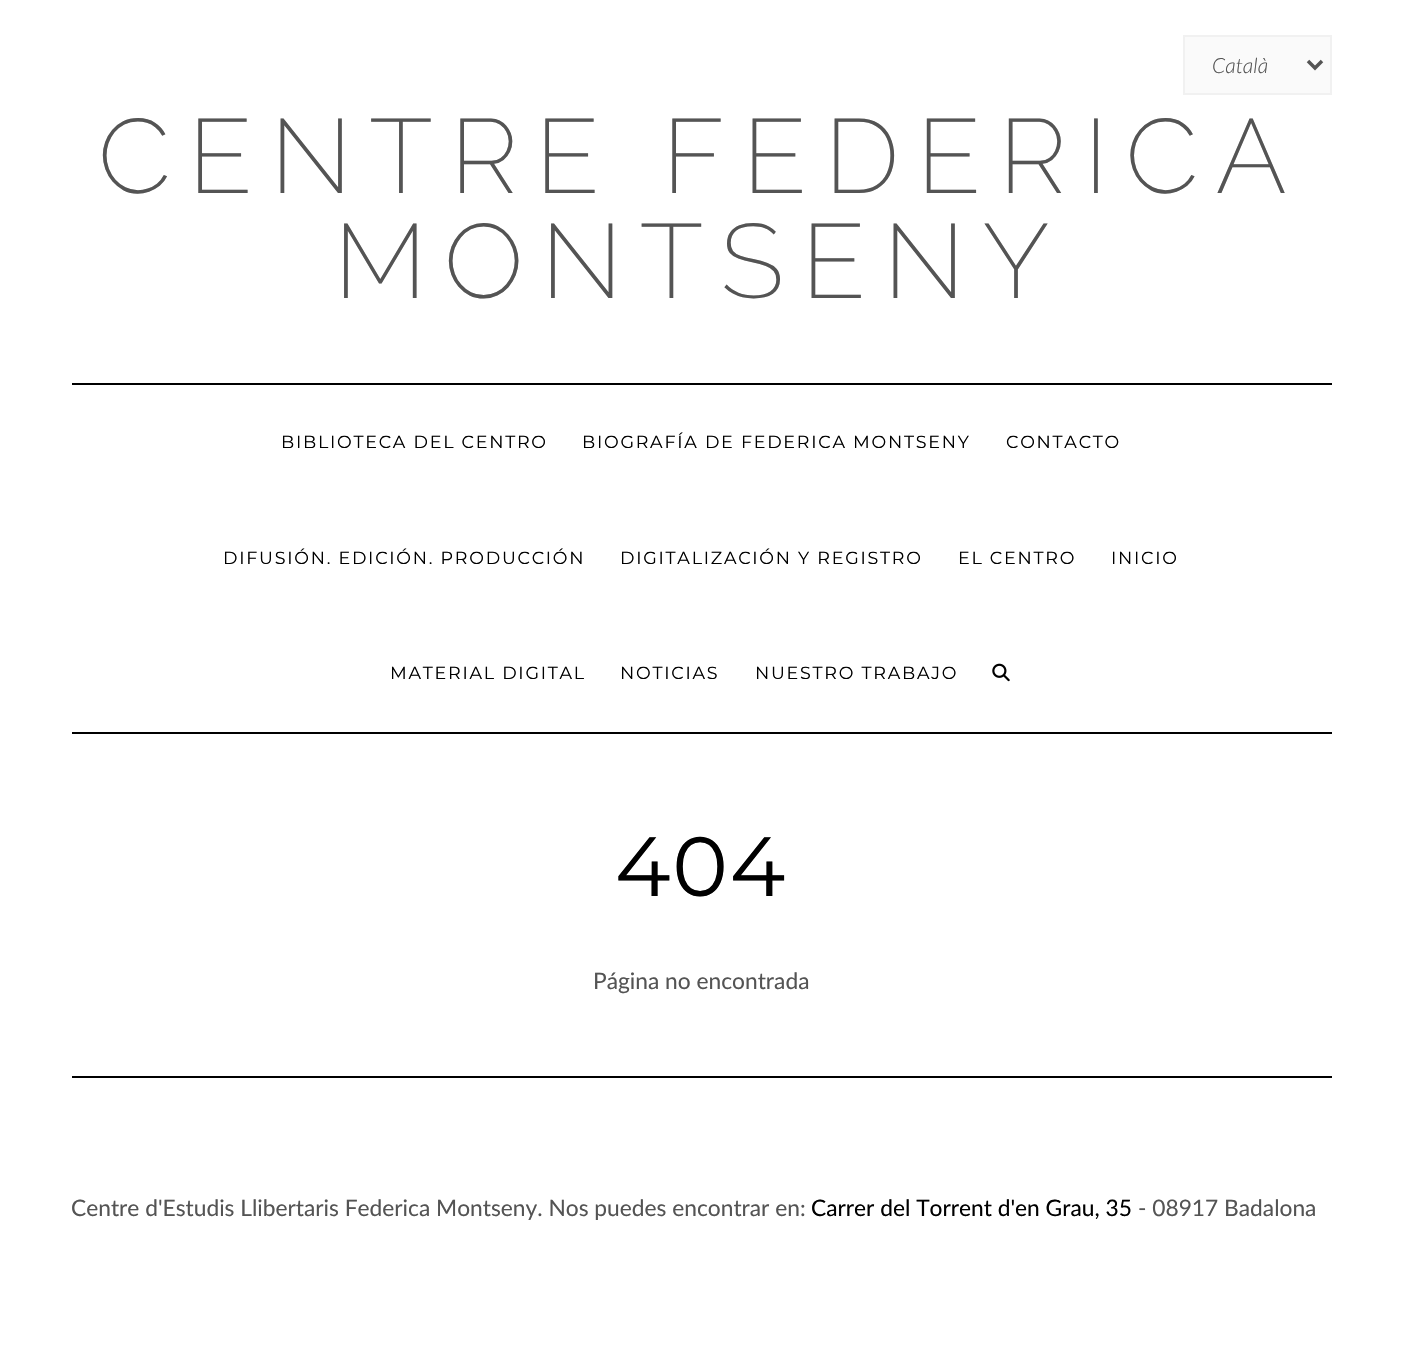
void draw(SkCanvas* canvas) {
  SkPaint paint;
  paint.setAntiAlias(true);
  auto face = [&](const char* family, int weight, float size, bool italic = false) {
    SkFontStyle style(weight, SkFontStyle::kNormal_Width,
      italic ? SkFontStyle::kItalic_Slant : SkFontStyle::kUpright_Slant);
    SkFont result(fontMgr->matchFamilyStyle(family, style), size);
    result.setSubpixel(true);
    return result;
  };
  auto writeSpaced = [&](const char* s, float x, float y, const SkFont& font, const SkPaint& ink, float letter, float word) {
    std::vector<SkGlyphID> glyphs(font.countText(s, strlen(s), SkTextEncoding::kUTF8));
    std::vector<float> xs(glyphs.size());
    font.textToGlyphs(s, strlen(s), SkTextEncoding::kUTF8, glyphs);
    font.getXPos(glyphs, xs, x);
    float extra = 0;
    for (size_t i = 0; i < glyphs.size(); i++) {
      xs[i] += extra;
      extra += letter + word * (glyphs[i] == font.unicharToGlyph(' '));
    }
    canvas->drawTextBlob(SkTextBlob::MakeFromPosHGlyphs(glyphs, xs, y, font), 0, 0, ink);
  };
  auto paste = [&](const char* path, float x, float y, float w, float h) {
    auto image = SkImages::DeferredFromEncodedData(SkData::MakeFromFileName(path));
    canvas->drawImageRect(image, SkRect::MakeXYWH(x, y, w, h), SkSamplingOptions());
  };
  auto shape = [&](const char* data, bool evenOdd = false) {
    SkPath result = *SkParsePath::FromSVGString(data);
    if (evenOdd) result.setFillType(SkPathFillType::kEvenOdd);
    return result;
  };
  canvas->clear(0xffffffff);
  paint.setColor(0xfffafafa);
  canvas->drawRect(SkRect::MakeXYWH(1184, 36, 147, 58), paint);
  paint.setStroke(true);
  paint.setStrokeWidth(2);
  paint.setColor(0xfff1f1f1);
  canvas->drawRect(SkRect::MakeXYWH(1184, 36, 147, 58), paint);
  paint.setStrokeWidth(3.5f);
  paint.setColor(0xff545454);
  canvas->drawPath(shape("M1308 61L1315 68L1322 61"), paint);
  paint.setStroke(false);
  paint.setColor(0xff000000);
  canvas->drawRect(SkRect::MakeXYWH(72, 383, 1260, 2), paint);
  canvas->drawRect(SkRect::MakeXYWH(72, 732, 1260, 2), paint);
  paste("img/1.png", 992, 663, 18, 19);
  canvas->drawRect(SkRect::MakeXYWH(72, 1076, 1260, 2), paint);
  auto f0 = face("Lato", 300, 21, true);
  paint.setColor(0xff545454);
  canvas->drawString("Català", 1212, 73, f0, paint);
  auto f1 = face("Raleway", 200, 105);
  writeSpaced("CENTRE FEDERICA", 98, 193, f1, paint, 17.5f, 0);
  writeSpaced("MONTSENY", 334, 298, f1, paint, 17.5f, 0);
  auto f2 = face("Montserrat", 400, 17.5f);
  paint.setColor(0xff000000);
  {
    const struct { const char* s; float x, y; } items[] = {
      {"BIBLIOTECA DEL CENTRO", 281, 448},
      {"BIOGRAFÍA DE FEDERICA MONTSENY", 582, 448},
      {"CONTACTO", 1006, 448},
      {"DIFUSIÓN. EDICIÓN. PRODUCCIÓN", 223, 564},
      {"DIGITALIZACIÓN Y REGISTRO", 620, 564},
      {"EL CENTRO", 958, 564},
      {"INICIO", 1111, 564},
      {"MATERIAL DIGITAL", 390, 679},
      {"NOTICIAS", 620, 679},
      {"NUESTRO TRABAJO", 755, 679},
    };
    for (auto [s, x, y] : items) {
      writeSpaced(s, x, y, f2, paint, 1.75f, 0);
    }
  }
  auto f3 = face("Montserrat", 400, 84);
  writeSpaced("404", 615, 896, f3, paint, 1.75f, 0);
  auto f4 = face("Lato", 400, 22.75f);
  paint.setColor(0xff545454);
  canvas->drawString("Página no encontrada", 593, 989, f4, paint);
  canvas->drawString("Centre d'Estudis Llibertaris Federica Montseny. Nos puedes encontrar en:", 71, 1216, f4, paint);
  paint.setColor(0xff000000);
  canvas->drawString("Carrer del Torrent d'en Grau, 35", 811, 1216, f4, paint);
  paint.setColor(0xff545454);
  canvas->drawString("- 08917 Badalona", 1138, 1216, f4, paint);
}
